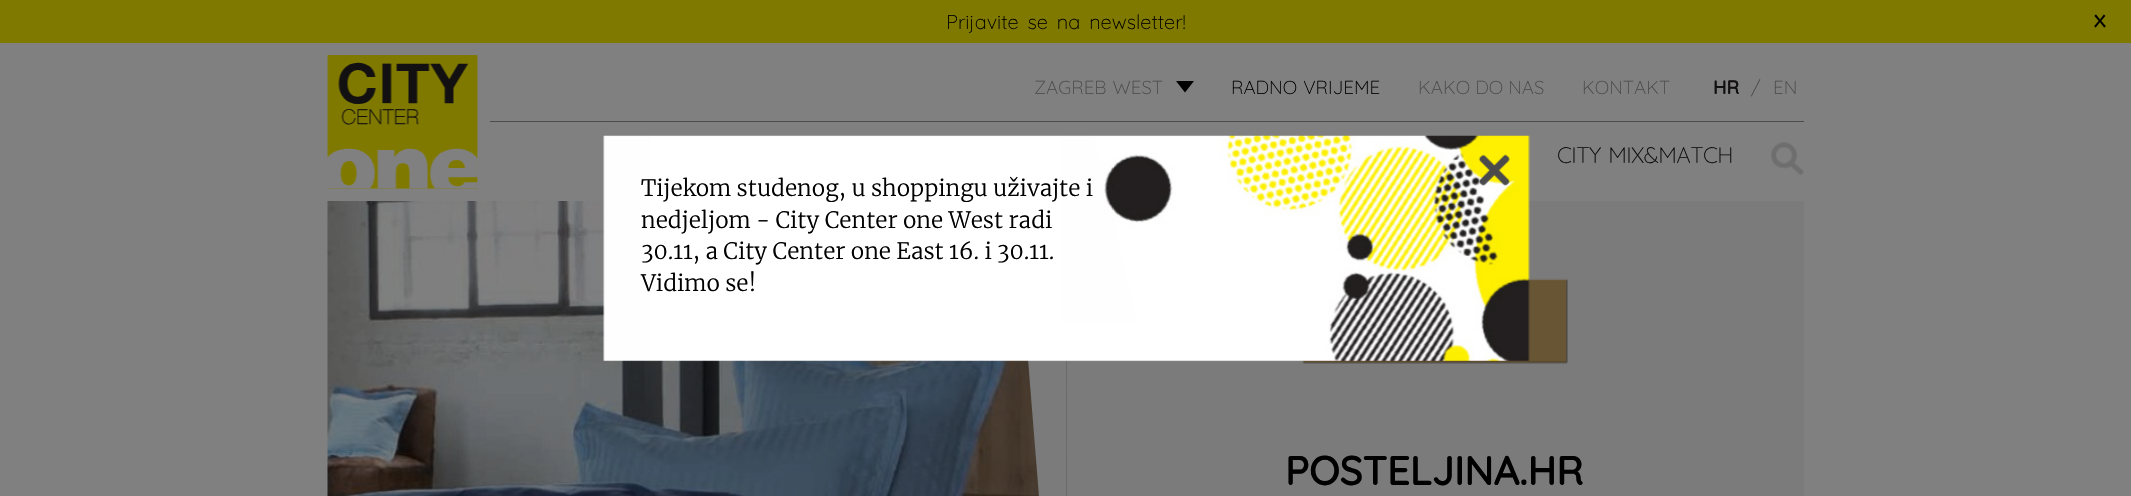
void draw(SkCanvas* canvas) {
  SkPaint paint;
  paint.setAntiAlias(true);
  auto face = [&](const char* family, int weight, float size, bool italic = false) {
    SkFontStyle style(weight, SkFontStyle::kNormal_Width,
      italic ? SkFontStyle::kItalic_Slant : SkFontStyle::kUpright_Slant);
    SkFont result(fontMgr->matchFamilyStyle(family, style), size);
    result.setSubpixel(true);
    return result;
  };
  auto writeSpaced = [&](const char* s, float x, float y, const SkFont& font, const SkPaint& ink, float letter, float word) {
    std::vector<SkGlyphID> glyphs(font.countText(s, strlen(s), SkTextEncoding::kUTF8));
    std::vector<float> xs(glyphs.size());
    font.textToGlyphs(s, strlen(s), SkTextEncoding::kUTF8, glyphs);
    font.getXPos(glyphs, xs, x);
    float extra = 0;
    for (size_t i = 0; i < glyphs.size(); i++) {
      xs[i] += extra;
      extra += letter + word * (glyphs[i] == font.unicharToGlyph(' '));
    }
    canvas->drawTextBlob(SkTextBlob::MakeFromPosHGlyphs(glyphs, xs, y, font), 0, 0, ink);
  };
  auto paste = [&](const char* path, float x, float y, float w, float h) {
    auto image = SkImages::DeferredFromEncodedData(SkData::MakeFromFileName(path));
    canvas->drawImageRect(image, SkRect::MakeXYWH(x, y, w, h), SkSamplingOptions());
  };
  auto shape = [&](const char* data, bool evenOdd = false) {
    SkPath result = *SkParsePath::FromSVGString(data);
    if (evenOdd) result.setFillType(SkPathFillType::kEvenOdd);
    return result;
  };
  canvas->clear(0xff808080);
  paint.setColor(0xff7b7b7b);
  canvas->drawRect(SkRect::MakeXYWH(1066, 201, 738, 295), paint);
  paste("img/6.png", 327, 201, 740, 295);
  canvas->drawPath(shape("M1014 184H1066V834Z"), paint);
  paint.setColor(0xff808080);
  canvas->drawRect(SkRect::MakeXYWH(1014, 184, 52, 17), paint);
  paint.setColor(0xff807900);
  canvas->drawRect(SkRect::MakeXYWH(0, 0, 2131, 43), paint);
  paste("img/1.png", 2094, 14, 12, 14);
  paste("img/2.png", 327, 55, 151, 134);
  paint.setColor(0xff000000);
  canvas->drawPath(shape("M1176 81H1194L1185 92.5Z"), paint);
  paint.setColor(0xff4c4c4c);
  canvas->drawRect(SkRect::MakeXYWH(490, 121, 1314, 1), paint);
  paste("img/3.png", 1771, 142, 33, 33);
  paste("img/7.png", 1302, 278, 266, 86);
  paste("img/4.png", 603, 135, 927, 227);
  paste("img/5.png", 1478, 154, 32, 32);
  auto f0 = face("Quicksand", 300, 20);
  paint.setColor(0xff000000);
  writeSpaced("Prijavite se na newsletter!", 946, 29, f0, paint, 0, 3.5f);
  auto f1 = face("Quicksand", 300, 18.75f);
  paint.setColor(0xff4c4c4c);
  writeSpaced("ZAGREB WEST", 1034, 94, f1, paint, 0, 1);
  paint.setColor(0xff000000);
  writeSpaced("RADNO VRIJEME", 1231, 94, f1, paint, 0, 1);
  paint.setColor(0xff4c4c4c);
  canvas->drawString("KAKO DO NAS", 1418, 94, f1, paint);
  canvas->drawString("KONTAKT", 1582, 94, f1, paint);
  auto f2 = face("Quicksand", 700, 18.75f);
  paint.setColor(0xff121010);
  canvas->drawString("HR", 1713, 94, f2, paint);
  paint.setColor(0xff4c4c4c);
  canvas->drawString("/", 1751, 94, f1, paint);
  canvas->drawString("EN", 1773, 94, f1, paint);
  auto f3 = face("Quicksand", 300, 22.5f);
  paint.setColor(0xff121010);
  writeSpaced("CITY MIX&MATCH", 1557, 163, f3, paint, -0.6f, 2);
  auto f4 = face("Merriweather", 300, 22.5f);
  paint.setColor(0xff000000);
  {
    const struct { const char* s; float x, y; } items[] = {
      {"Tijekom studenog, u shoppingu uživajte i", 641, 196},
      {"nedjeljom - City Center one West radi", 641, 228},
      {"30.11, a City Center one East 16. i 30.11.", 641, 259},
      {"Vidimo se!", 641, 291},
    };
    for (auto [s, x, y] : items) {
      canvas->drawString(s, x, y, f4, paint);
    }
  }
  auto f5 = face("Quicksand", 700, 40);
  canvas->drawString("POSTELJINA.HR", 1285, 485, f5, paint);
}
